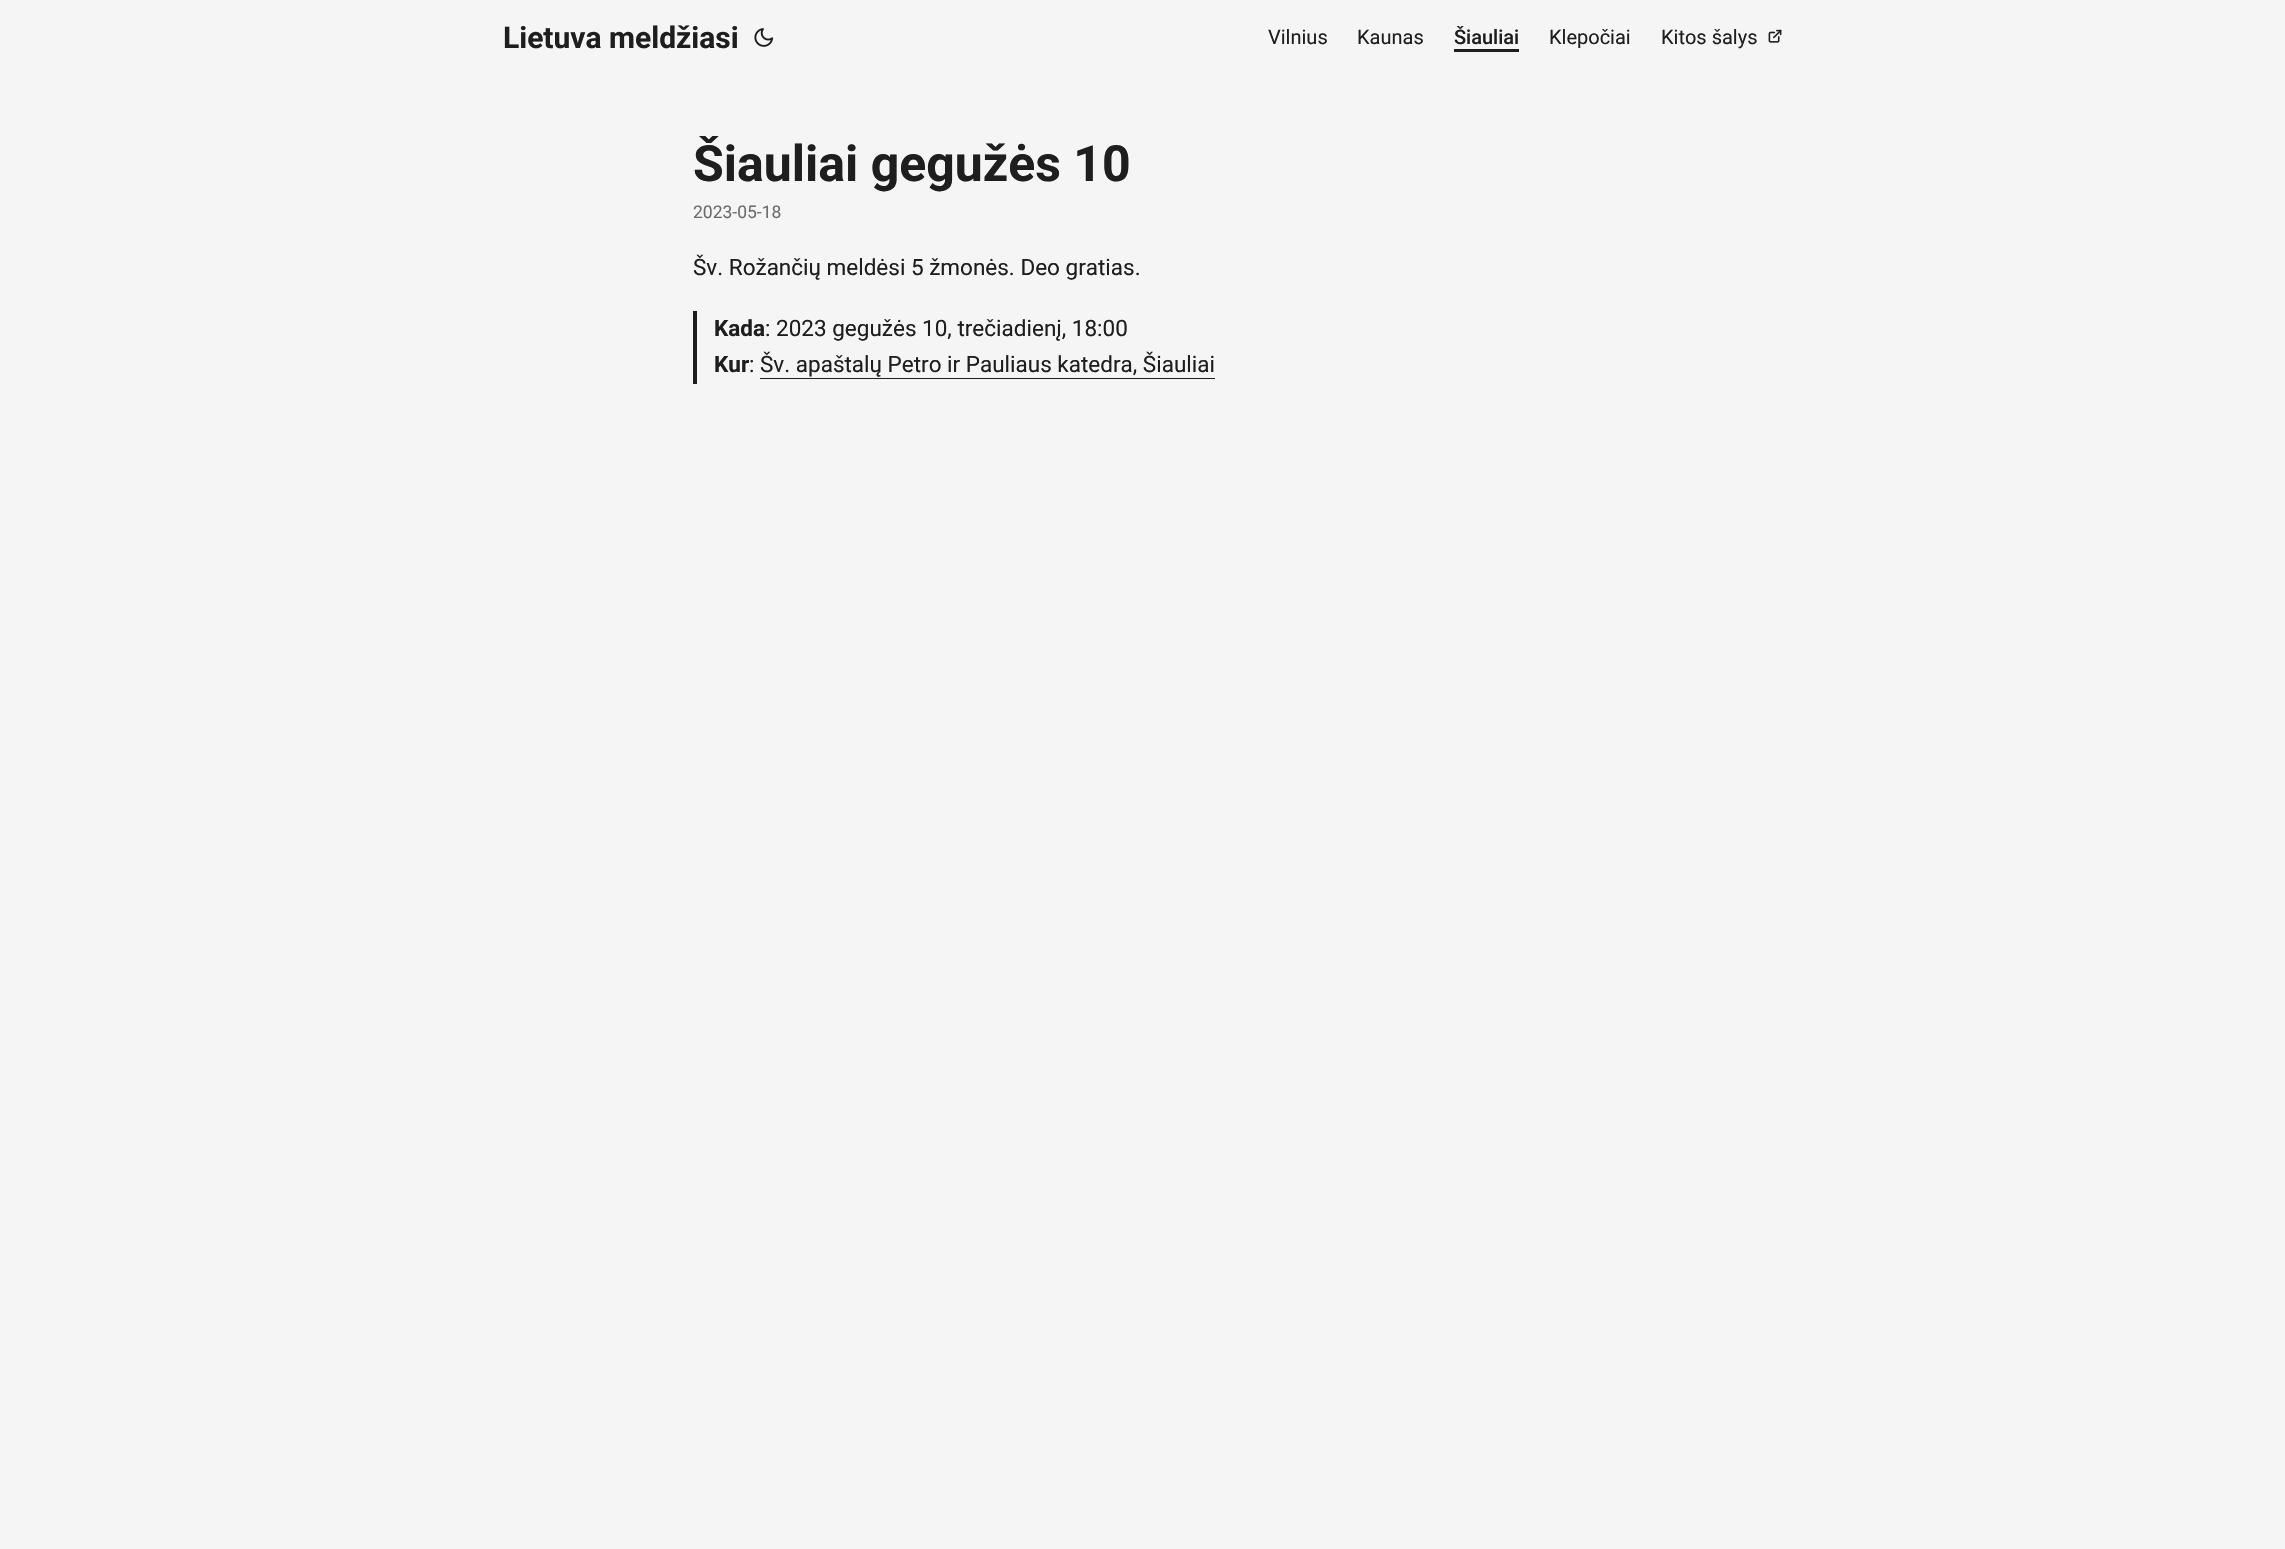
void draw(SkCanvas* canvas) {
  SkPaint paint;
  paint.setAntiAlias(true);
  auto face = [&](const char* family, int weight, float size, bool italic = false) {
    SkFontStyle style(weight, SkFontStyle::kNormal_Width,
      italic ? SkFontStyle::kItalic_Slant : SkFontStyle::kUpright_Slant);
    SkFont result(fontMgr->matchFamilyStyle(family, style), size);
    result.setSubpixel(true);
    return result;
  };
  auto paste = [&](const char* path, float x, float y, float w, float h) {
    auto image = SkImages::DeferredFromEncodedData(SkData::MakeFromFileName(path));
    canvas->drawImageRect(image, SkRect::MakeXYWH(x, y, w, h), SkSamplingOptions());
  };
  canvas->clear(0xfff5f5f5);
  paste("img/1.png", 754, 28, 20, 19);
  paint.setColor(0xff1e1e1e);
  canvas->drawRect(SkRect::MakeXYWH(1454, 49, 65, 3), paint);
  paste("img/2.png", 1768, 29, 14, 14);
  canvas->drawRect(SkRect::MakeXYWH(693, 311, 4, 73), paint);
  canvas->drawRect(SkRect::MakeXYWH(760, 378, 455, 1), paint);
  auto f0 = face("Roboto", 700, 30);
  canvas->drawString("Lietuva meldžiasi", 503, 48, f0, paint);
  auto f1 = face("Roboto", 400, 20);
  canvas->drawString("Vilnius", 1268, 44, f1, paint);
  canvas->drawString("Kaunas", 1357, 44, f1, paint);
  auto f2 = face("Roboto", 500, 20);
  canvas->drawString("Šiauliai", 1454, 44, f2, paint);
  canvas->drawString("Klepočiai", 1549, 44, f1, paint);
  canvas->drawString("Kitos šalys", 1661, 44, f1, paint);
  auto f3 = face("Roboto", 700, 50);
  canvas->drawString("Šiauliai gegužės 10", 693, 181, f3, paint);
  auto f4 = face("Roboto", 400, 17.5f);
  paint.setColor(0xff6c6c6c);
  canvas->drawString("2023-05-18", 693, 218, f4, paint);
  auto f5 = face("Roboto", 400, 22.5f);
  paint.setColor(0xff1e1e1e);
  canvas->drawString("Šv. Rožančių meldėsi 5 žmonės. Deo gratias.", 693, 275, f5, paint);
  auto f6 = face("Roboto", 700, 22.5f);
  canvas->drawString("Kada", 714, 336, f6, paint);
  canvas->drawString(": 2023 gegužės 10, trečiadienį, 18:00", 765, 336, f5, paint);
  canvas->drawString("Kur", 714, 372, f6, paint);
  canvas->drawString(":", 749, 372, f5, paint);
  canvas->drawString("Šv. apaštalų Petro ir Pauliaus katedra, Šiauliai", 760, 372, f5, paint);
}
